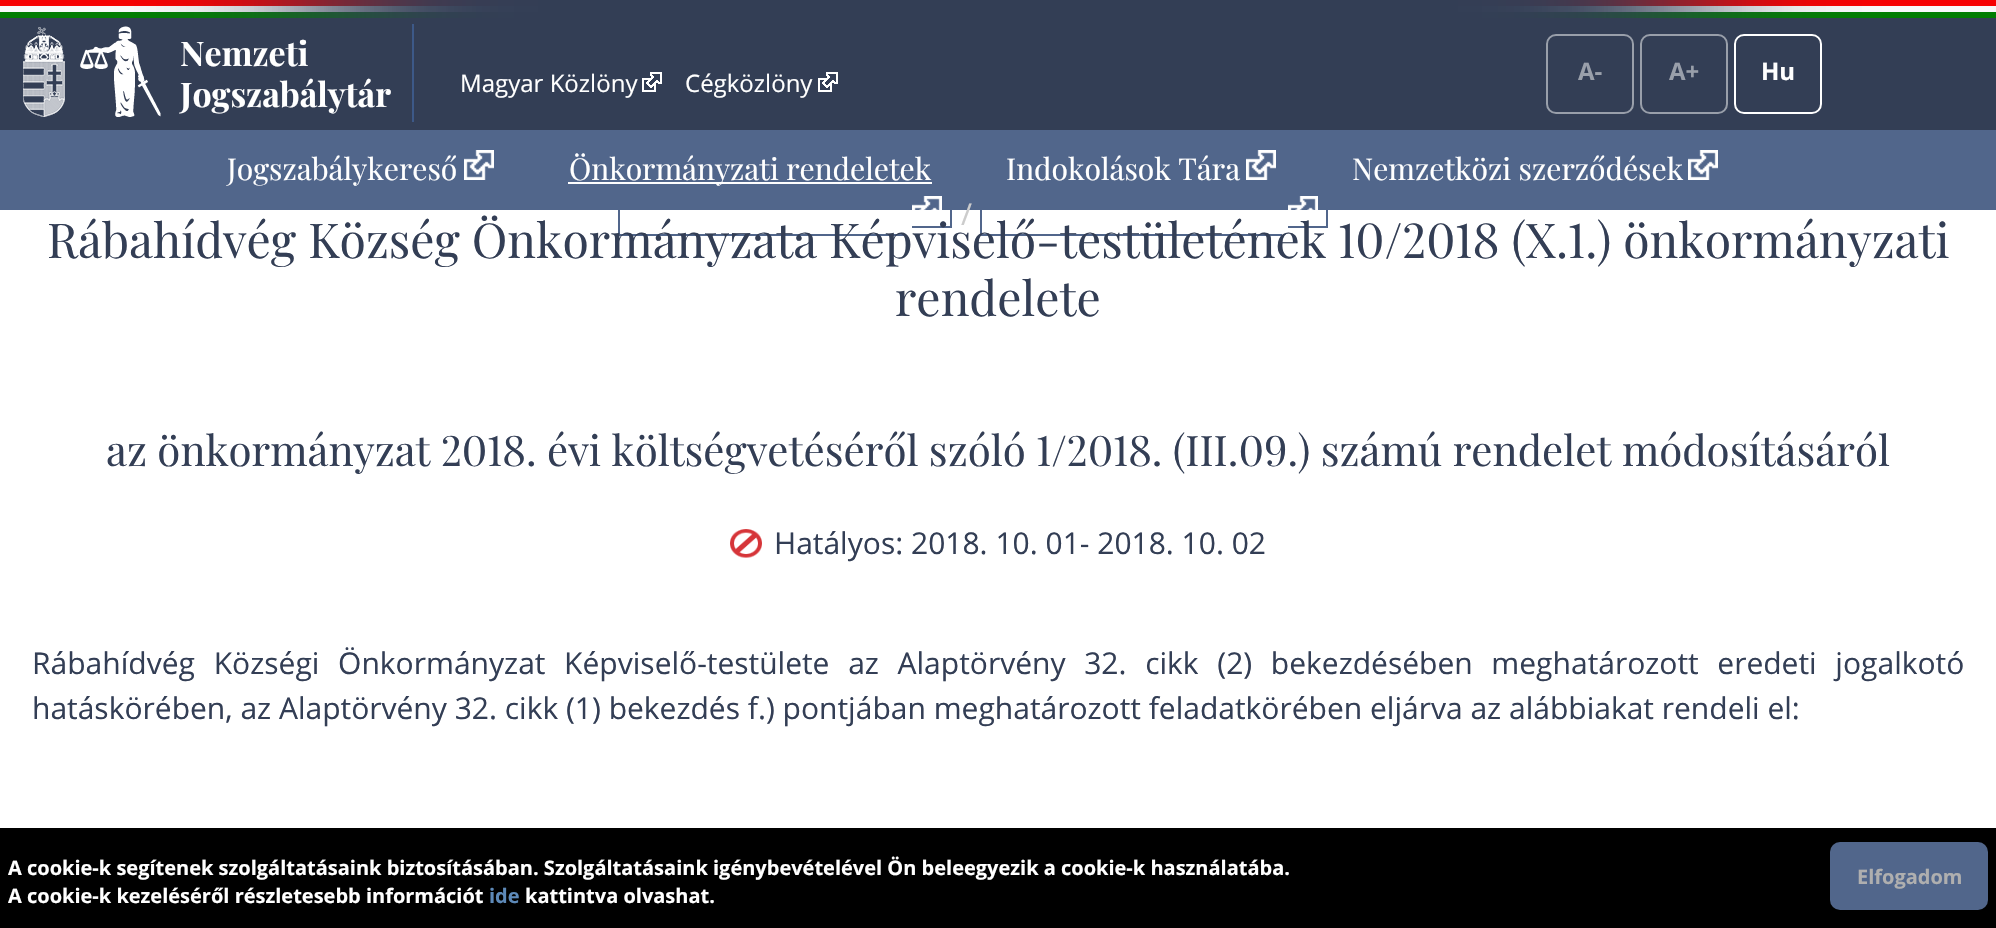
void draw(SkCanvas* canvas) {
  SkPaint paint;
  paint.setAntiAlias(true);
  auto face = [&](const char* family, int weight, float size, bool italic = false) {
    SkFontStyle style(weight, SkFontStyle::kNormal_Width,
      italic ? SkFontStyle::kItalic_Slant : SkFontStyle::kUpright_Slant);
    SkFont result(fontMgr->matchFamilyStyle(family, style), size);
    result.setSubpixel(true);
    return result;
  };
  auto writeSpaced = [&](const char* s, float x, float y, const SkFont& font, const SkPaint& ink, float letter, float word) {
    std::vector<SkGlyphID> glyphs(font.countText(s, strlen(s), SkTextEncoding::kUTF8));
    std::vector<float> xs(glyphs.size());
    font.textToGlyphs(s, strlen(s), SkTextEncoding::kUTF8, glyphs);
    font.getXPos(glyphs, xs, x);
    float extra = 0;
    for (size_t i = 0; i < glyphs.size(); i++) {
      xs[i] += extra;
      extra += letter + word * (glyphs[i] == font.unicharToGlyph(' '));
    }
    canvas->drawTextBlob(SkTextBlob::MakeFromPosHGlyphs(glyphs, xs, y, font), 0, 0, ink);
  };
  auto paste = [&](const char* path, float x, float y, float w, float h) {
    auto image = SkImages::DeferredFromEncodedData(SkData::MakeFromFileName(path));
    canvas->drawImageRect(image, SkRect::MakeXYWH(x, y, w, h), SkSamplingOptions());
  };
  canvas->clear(0xffffffff);
  paint.setColor(0xff333e55);
  canvas->drawRect(SkRect::MakeXYWH(0, 18, 1996, 112), paint);
  paste("img/1.png", 0, 0, 1996, 18);
  canvas->drawRect(SkRect::MakeXYWH(8, 0, 1980, 18), paint);
  paste("img/2.png", 8, 0, 1980, 18);
  paste("img/3.png", 23, 26, 138, 91);
  paint.setColor(0xff3d5988);
  canvas->drawRect(SkRect::MakeXYWH(412, 24, 2, 98), paint);
  paste("img/4.png", 642, 72, 20, 20);
  paste("img/4.png", 818, 72, 20, 20);
  paint.setStroke(true);
  paint.setStrokeWidth(2);
  paint.setColor(0xff999faa);
  canvas->drawRoundRect(SkRect::MakeXYWH(1547, 35, 86, 78), 9, 9, paint);
  canvas->drawRoundRect(SkRect::MakeXYWH(1641, 35, 86, 78), 9, 9, paint);
  paint.setColor(0xffffffff);
  canvas->drawRoundRect(SkRect::MakeXYWH(1735, 35, 86, 78), 9, 9, paint);
  paint.setStroke(false);
  paint.setColor(0xff51668b);
  canvas->drawRect(SkRect::MakeXYWH(0, 130, 1996, 80), paint);
  paste("img/5.png", 464, 150, 30, 30);
  paint.setColor(0xffffffff);
  canvas->drawRect(SkRect::MakeXYWH(568, 182, 364, 2), paint);
  paste("img/6.png", 1246, 150, 30, 30);
  paste("img/5.png", 1688, 150, 30, 30);
  {
    const struct { float x, y, w, h; SkColor color; } items[] = {
      {618, 234, 288, 2, 0xff51668b},
      {618, 210, 2, 26, 0xff51668b},
      {950, 210, 2, 18, 0xff51668b},
      {912, 226, 40, 2, 0xff51668b},
    };
    for (auto [x, y, w, h, color] : items) {
      paint.setColor(color);
      canvas->drawRect(SkRect::MakeXYWH(x, y, w, h), paint);
    }
  }
  paste("img/7.png", 912, 196, 30, 14);
  {
    const struct { float x, y, w, h; SkColor color; } items[] = {
      {980, 234, 302, 2, 0xff51668b},
      {980, 210, 2, 26, 0xff51668b},
      {1326, 210, 2, 18, 0xff51668b},
      {1288, 226, 40, 2, 0xff51668b},
    };
    for (auto [x, y, w, h, color] : items) {
      paint.setColor(color);
      canvas->drawRect(SkRect::MakeXYWH(x, y, w, h), paint);
    }
  }
  paste("img/7.png", 1288, 196, 30, 14);
  paste("img/8.png", 730, 529, 32, 29);
  paint.setColor(0xff000000);
  canvas->drawRect(SkRect::MakeXYWH(0, 828, 1996, 100), paint);
  paint.setColor(0xff51668b);
  canvas->drawRoundRect(SkRect::MakeXYWH(1830, 842, 158, 68), 10, 10, paint);
  auto f0 = face("Playfair Display", 700, 34);
  paint.setColor(0xffffffff);
  canvas->drawString("Nemzeti", 180, 66, f0, paint);
  canvas->drawString("Jogszabálytár", 180, 107, f0, paint);
  auto f1 = face("Open Sans", 400, 24);
  canvas->drawString("Magyar Közlöny", 460, 92, f1, paint);
  canvas->drawString("Cégközlöny", 685, 92, f1, paint);
  auto f2 = face("Open Sans", 700, 24);
  paint.setColor(0xff999faa);
  canvas->drawString("A-", 1578, 80, f2, paint);
  canvas->drawString("A+", 1669, 80, f2, paint);
  paint.setColor(0xffffffff);
  canvas->drawString("Hu", 1761, 80, f2, paint);
  auto f3 = face("Playfair Display", 400, 30);
  {
    const struct { const char* s; float x, y; } items[] = {
      {"Jogszabálykereső", 227, 180},
      {"Önkormányzati rendeletek", 569, 180},
      {"Indokolások Tára", 1006, 180},
      {"Nemzetközi szerződések", 1352, 180},
    };
    for (auto [s, x, y] : items) {
      canvas->drawString(s, x, y, f3, paint);
    }
  }
  auto f4 = face("Open Sans", 400, 30);
  paint.setColor(0xffcccccc);
  canvas->drawString("/", 961, 225, f4, paint);
  auto f5 = face("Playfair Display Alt", 400, 48);
  paint.setColor(0xff333e55);
  canvas->drawString("Rábahídvég Község Önkormányzata Képviselő-testületének 10/2018 (X.1.) önkormányzati", 47, 258, f5, paint);
  auto f6 = face("Playfair Display", 400, 48);
  canvas->drawString("rendelete", 895, 316, f6, paint);
  auto f7 = face("Playfair Display Alt", 400, 42);
  canvas->drawString("az önkormányzat 2018. évi költségvetéséről szóló 1/2018. (III.09.) számú rendelet módosításáról", 106, 466, f7, paint);
  canvas->drawString("Hatályos: 2018. 10. 01- 2018. 10. 02", 774, 554, f4, paint);
  writeSpaced("Rábahídvég Községi Önkormányzat Képviselő-testülete az Alaptörvény 32. cikk (2) bekezdésében meghatározott eredeti jogalkotó", 32, 674, f4, paint, 0, 10.9f);
  canvas->drawString("hatáskörében, az Alaptörvény 32. cikk (1) bekezdés f.) pontjában meghatározott feladatkörében eljárva az alábbiakat rendeli el:", 32, 719, f4, paint);
  auto f8 = face("Open Sans", 700, 20);
  paint.setColor(0xffffffff);
  canvas->drawString("A cookie-k segítenek szolgáltatásaink biztosításában. Szolgáltatásaink igénybevételével Ön beleegyezik a cookie-k használatába.", 8, 875, f8, paint);
  canvas->drawString("A cookie-k kezeléséről részletesebb információt", 8, 903, f8, paint);
  paint.setColor(0xff5d89b8);
  canvas->drawString("ide", 489, 903, f8, paint);
  paint.setColor(0xffffffff);
  canvas->drawString("kattintva olvashat.", 525, 903, f8, paint);
  paint.setColor(0xffafafaf);
  canvas->drawString("Elfogadom", 1857, 884, f8, paint);
}
